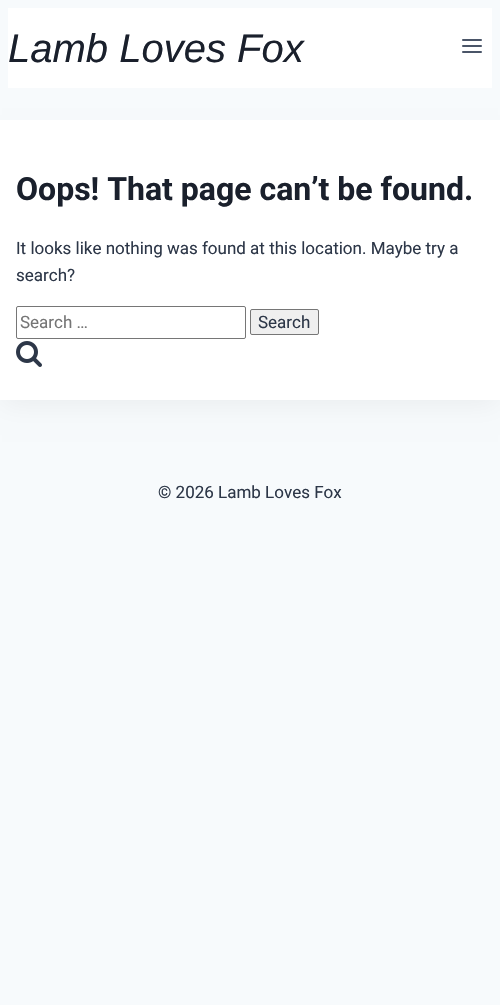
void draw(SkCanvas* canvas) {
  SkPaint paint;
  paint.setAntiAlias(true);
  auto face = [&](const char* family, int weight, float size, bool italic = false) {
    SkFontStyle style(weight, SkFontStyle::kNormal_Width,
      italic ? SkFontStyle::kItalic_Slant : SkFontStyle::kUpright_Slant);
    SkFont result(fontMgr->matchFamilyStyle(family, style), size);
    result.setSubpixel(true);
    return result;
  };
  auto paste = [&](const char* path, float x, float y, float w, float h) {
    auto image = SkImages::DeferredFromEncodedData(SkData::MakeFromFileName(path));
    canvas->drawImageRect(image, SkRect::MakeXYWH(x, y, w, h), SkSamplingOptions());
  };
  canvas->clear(0xfff7fafc);
  paint.setColor(0xffffffff);
  canvas->drawRect(SkRect::MakeXYWH(8, 8, 484, 80), paint);
  paste("img/1.png", 462, 39, 20, 14);
  paint.setColor(0x0d000000);
  paint.setMaskFilter(SkMaskFilter::MakeBlur(kNormal_SkBlurStyle, 12.5f));
  canvas->drawRect(SkRect::MakeXYWH(2, 145, 496, 260), paint);
  paint.setMaskFilter(nullptr);
  paint.setColor(0xffffffff);
  canvas->drawRect(SkRect::MakeXYWH(0, 120, 500, 280), paint);
  paint.setStroke(true);
  paint.setStrokeWidth(1);
  paint.setColor(0xff767676);
  canvas->drawRoundRect(SkRect::MakeXYWH(16.5f, 306.5f, 229, 32), 1.5f, 1.5f, paint);
  paint.setStroke(false);
  paint.setColor(0xffefefef);
  canvas->drawRoundRect(SkRect::MakeXYWH(250.5f, 309.5f, 68, 25), 1.5f, 1.5f, paint);
  paint.setStroke(true);
  paint.setColor(0xff767676);
  canvas->drawRoundRect(SkRect::MakeXYWH(250.5f, 309.5f, 68, 25), 1.5f, 1.5f, paint);
  paste("img/2.png", 16, 341, 26, 26);
  auto f0 = face("Liberation Sans", 400, 40, true);
  paint.setStroke(false);
  paint.setColor(0xff1a202c);
  canvas->drawString("Lamb Loves Fox", 8, 62, f0, paint);
  auto f1 = face("Roboto", 700, 32);
  canvas->drawString("Oops! That page can’t be found.", 16, 200, f1, paint);
  auto f2 = face("Roboto", 400, 17);
  paint.setColor(0xff2d3748);
  canvas->drawString("It looks like nothing was found at this location. Maybe try a", 16, 254, f2, paint);
  canvas->drawString("search?", 16, 281, f2, paint);
  paint.setColor(0xff757575);
  canvas->drawString("Search …", 20, 328, f2, paint);
  paint.setColor(0xff2d3748);
  canvas->drawString("Search", 258, 328, f2, paint);
  canvas->drawString("© 2026 Lamb Loves Fox", 158, 498, f2, paint);
}
